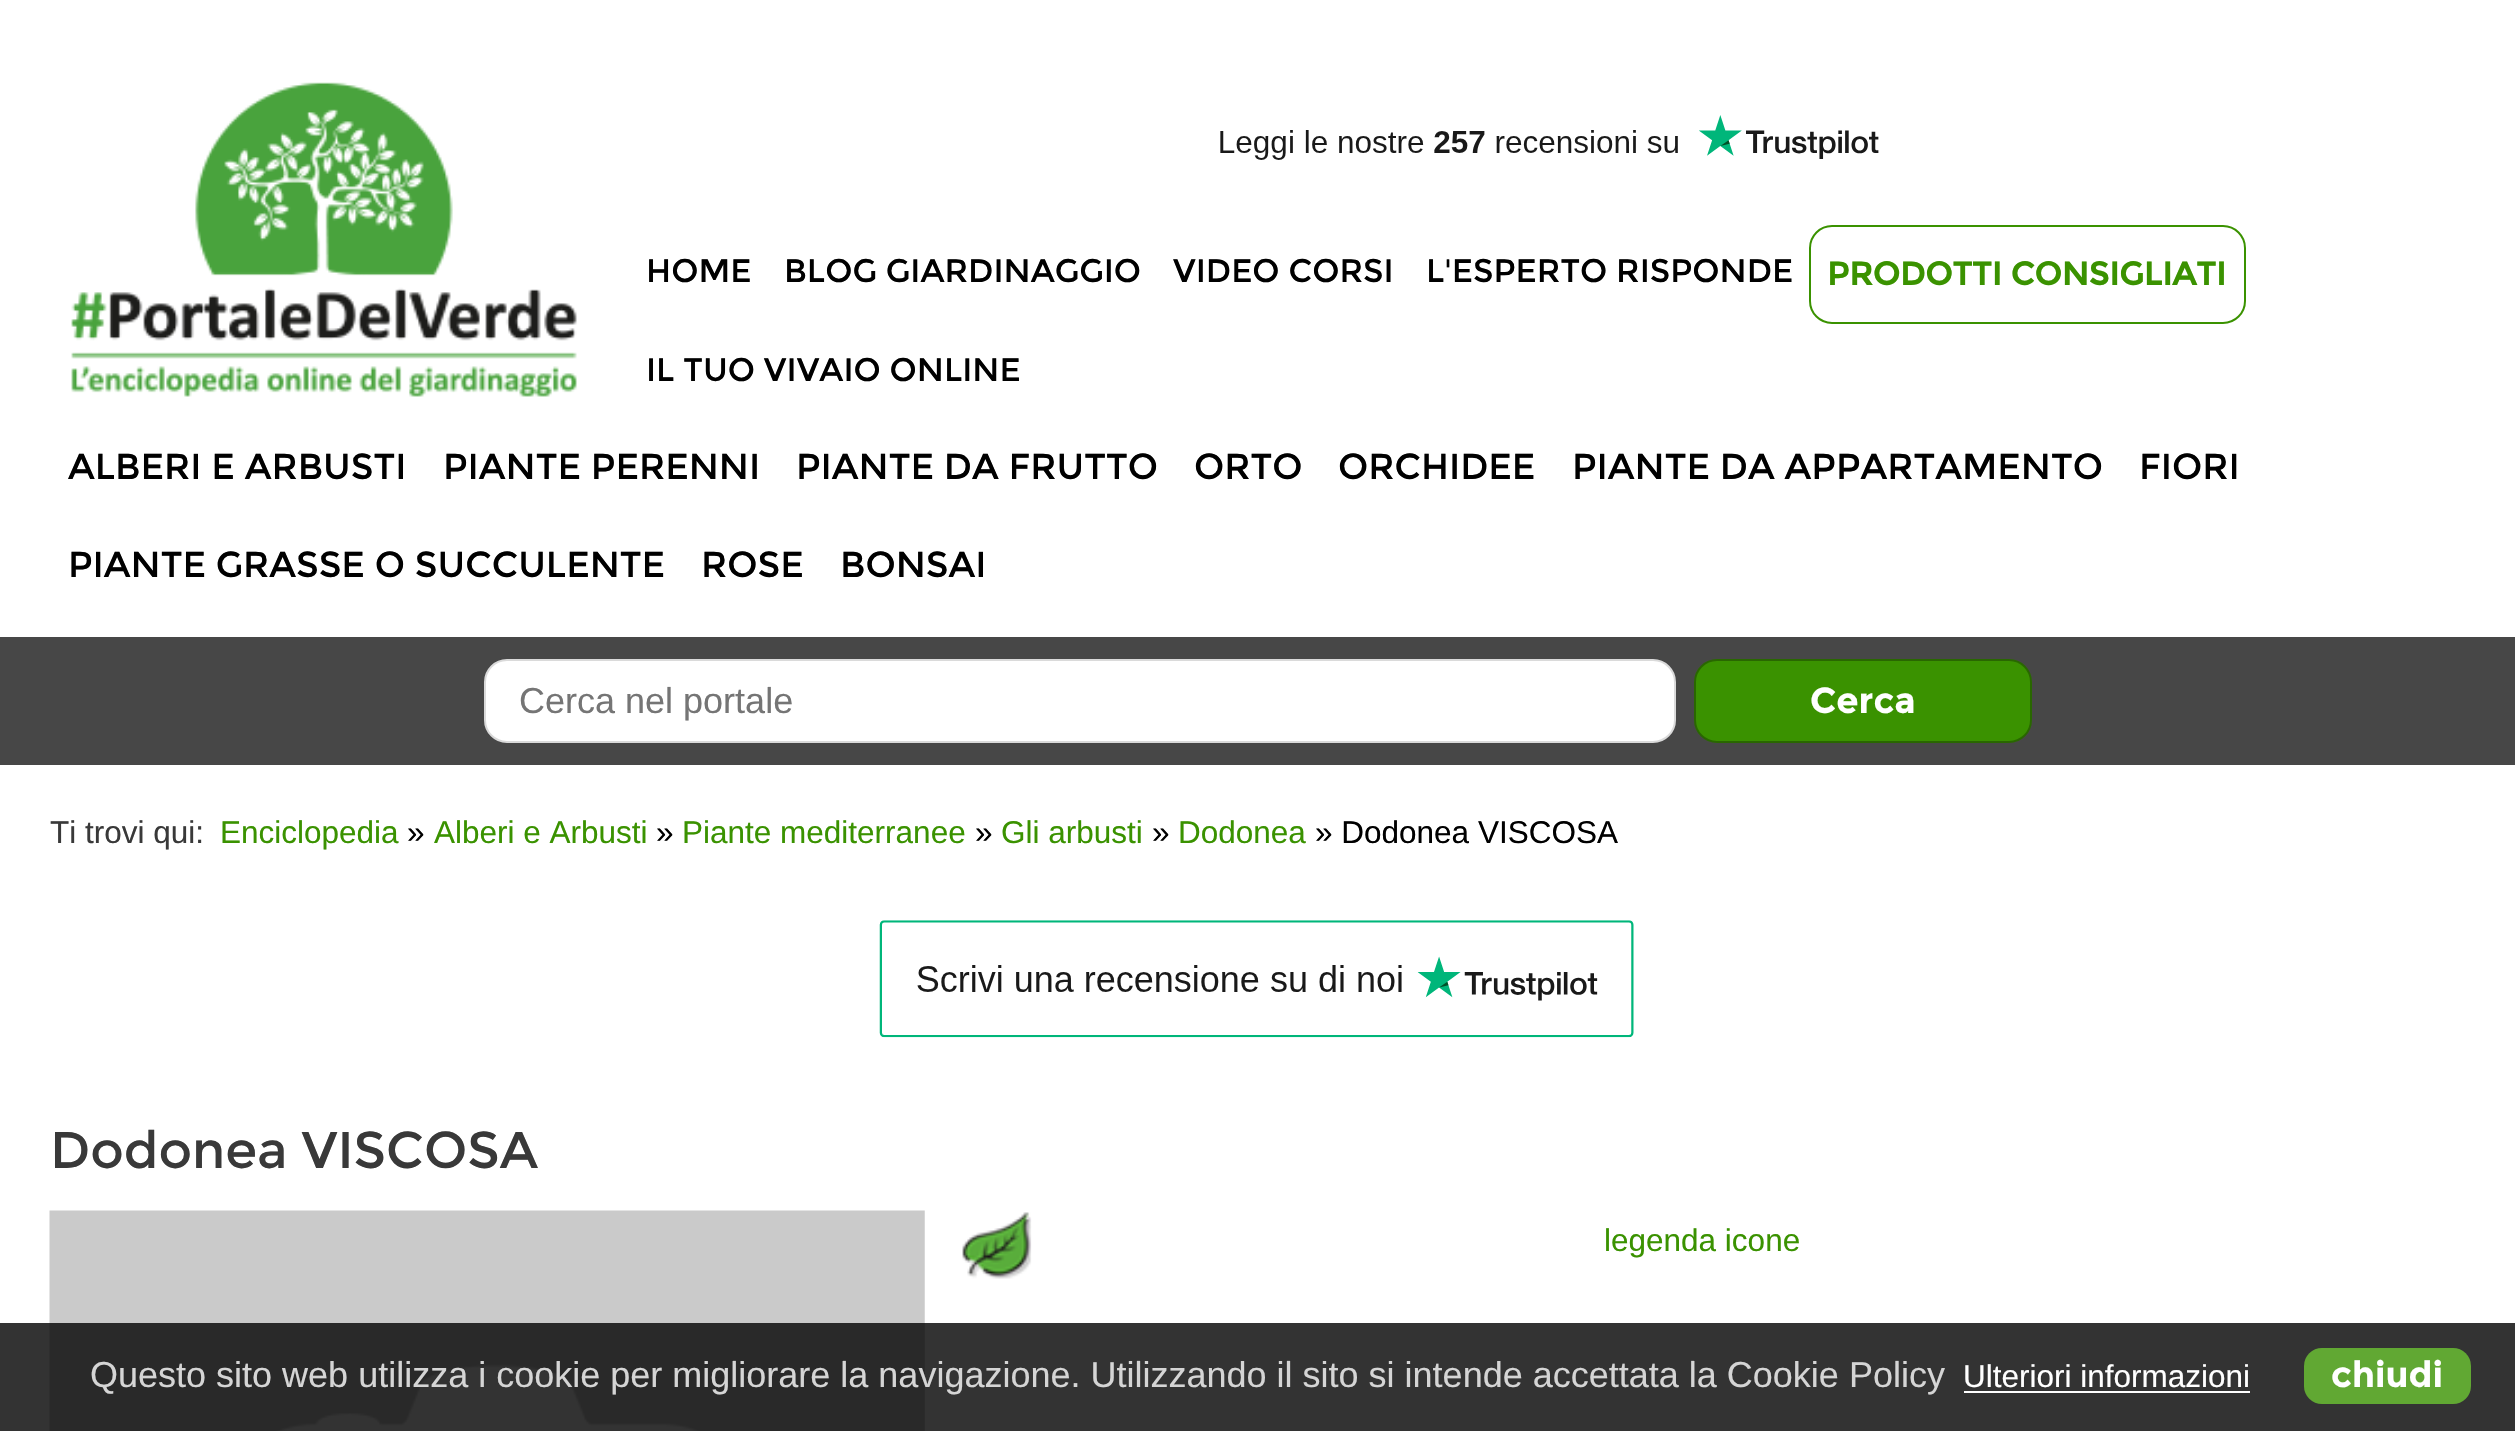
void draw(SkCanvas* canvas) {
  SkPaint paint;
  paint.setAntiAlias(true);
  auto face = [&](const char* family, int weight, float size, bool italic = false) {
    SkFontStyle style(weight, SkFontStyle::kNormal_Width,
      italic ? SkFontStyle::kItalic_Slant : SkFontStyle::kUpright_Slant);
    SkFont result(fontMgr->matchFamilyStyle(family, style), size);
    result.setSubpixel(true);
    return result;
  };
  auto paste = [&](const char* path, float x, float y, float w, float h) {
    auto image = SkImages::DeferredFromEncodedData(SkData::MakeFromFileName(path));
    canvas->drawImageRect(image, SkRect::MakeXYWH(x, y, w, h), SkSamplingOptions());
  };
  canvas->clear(0xffffffff);
  paste("img/1.png", 71, 82, 506, 315);
  paste("img/2.png", 1220, 115, 659, 45);
  paint.setStroke(true);
  paint.setStrokeWidth(2);
  paint.setColor(0xff3a9200);
  canvas->drawRoundRect(SkRect::MakeXYWH(1810, 226, 435, 97), 22, 22, paint);
  paint.setStroke(false);
  paint.setColor(0xff474747);
  canvas->drawRect(SkRect::MakeXYWH(0, 637, 2515, 128), paint);
  paint.setColor(0xffffffff);
  canvas->drawRoundRect(SkRect::MakeXYWH(485, 660, 1190, 82), 22, 22, paint);
  paint.setStroke(true);
  paint.setColor(0xffdadada);
  canvas->drawRoundRect(SkRect::MakeXYWH(485, 660, 1190, 82), 22, 22, paint);
  paint.setStroke(false);
  paint.setColor(0xff3a9200);
  canvas->drawRoundRect(SkRect::MakeXYWH(1695, 660, 336, 82), 22, 22, paint);
  paint.setStroke(true);
  paint.setColor(0xff296700);
  canvas->drawRoundRect(SkRect::MakeXYWH(1695, 660, 336, 82), 22, 22, paint);
  paste("img/3.png", 879, 920, 755, 118);
  paste("img/4.png", 49, 1210, 876, 221);
  paste("img/5.png", 962, 1212, 70, 67);
  paint.setStroke(false);
  paint.setColor(0xcc000000);
  canvas->drawRect(SkRect::MakeXYWH(0, 1323, 2515, 108), paint);
  paint.setColor(0xffffffff);
  canvas->drawRect(SkRect::MakeXYWH(1964, 1391, 286, 2), paint);
  paint.setColor(0xff61a833);
  canvas->drawRoundRect(SkRect::MakeXYWH(2304, 1348, 167, 56), 18, 18, paint);
  auto f0 = face("Montserrat", 400, 32.4f);
  paint.setColor(0xff000000);
  {
    const struct { const char* s; float x, y; } items[] = {
      {"HOME", 646, 282},
      {"BLOG GIARDINAGGIO", 784, 282},
      {"VIDEO CORSI", 1173, 282},
      {"L'ESPERTO RISPONDE", 1426, 282},
    };
    for (auto [s, x, y] : items) {
      canvas->drawString(s, x, y, f0, paint);
    }
  }
  auto f1 = face("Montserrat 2", 700, 32.4f);
  paint.setColor(0xff3a9200);
  canvas->drawString("PRODOTTI CONSIGLIATI", 1827, 285, f1, paint);
  paint.setColor(0xff000000);
  canvas->drawString("IL TUO VIVAIO ONLINE", 646, 381, f0, paint);
  auto f2 = face("Montserrat", 400, 36);
  {
    const struct { const char* s; float x, y; } items[] = {
      {"ALBERI E ARBUSTI", 68, 479},
      {"PIANTE PERENNI", 443, 479},
      {"PIANTE DA FRUTTO", 796, 479},
      {"ORTO", 1194, 479},
      {"ORCHIDEE", 1338, 479},
      {"PIANTE DA APPARTAMENTO", 1572, 479},
      {"FIORI", 2139, 479},
      {"PIANTE GRASSE O SUCCULENTE", 68, 577},
      {"ROSE", 701, 577},
      {"BONSAI", 840, 577},
    };
    for (auto [s, x, y] : items) {
      canvas->drawString(s, x, y, f2, paint);
    }
  }
  auto f3 = face("Liberation Sans", 400, 36);
  paint.setColor(0xff757575);
  canvas->drawString("Cerca nel portale", 519, 713, f3, paint);
  auto f4 = face("Montserrat", 700, 36);
  paint.setColor(0xffffffff);
  canvas->drawString("Cerca", 1810, 713, f4, paint);
  auto f5 = face("Liberation Sans", 400, 31.5f);
  paint.setColor(0xff393939);
  canvas->drawString("Ti trovi qui:", 50, 843, f5, paint);
  paint.setColor(0xff3a9200);
  canvas->drawString("Enciclopedia", 220, 843, f5, paint);
  paint.setColor(0xff000000);
  canvas->drawString("»", 407, 843, f5, paint);
  paint.setColor(0xff3a9200);
  canvas->drawString("Alberi e Arbusti", 434, 843, f5, paint);
  paint.setColor(0xff000000);
  canvas->drawString("»", 656, 843, f5, paint);
  paint.setColor(0xff3a9200);
  canvas->drawString("Piante mediterranee", 682, 843, f5, paint);
  paint.setColor(0xff000000);
  canvas->drawString("»", 975, 843, f5, paint);
  paint.setColor(0xff3a9200);
  canvas->drawString("Gli arbusti", 1001, 843, f5, paint);
  paint.setColor(0xff000000);
  canvas->drawString("»", 1152, 843, f5, paint);
  paint.setColor(0xff3a9200);
  canvas->drawString("Dodonea", 1178, 843, f5, paint);
  paint.setColor(0xff000000);
  canvas->drawString("» Dodonea VISCOSA", 1315, 843, f5, paint);
  auto f6 = face("Montserrat", 400, 51.5f);
  paint.setColor(0xff393939);
  canvas->drawString("Dodonea VISCOSA", 50, 1168, f6, paint);
  paint.setColor(0xff3a9200);
  canvas->drawString("legenda icone", 1604, 1251, f5, paint);
  paint.setColor(0xffd5d5d5);
  canvas->drawString("Questo sito web utilizza i cookie per migliorare la navigazione. Utilizzando il sito si intende accettata la Cookie Policy", 90, 1387, f3, paint);
  paint.setColor(0xffffffff);
  canvas->drawString("Ulteriori informazioni", 1963, 1387, f5, paint);
  canvas->drawString("chiudi", 2331, 1387, f4, paint);
}
